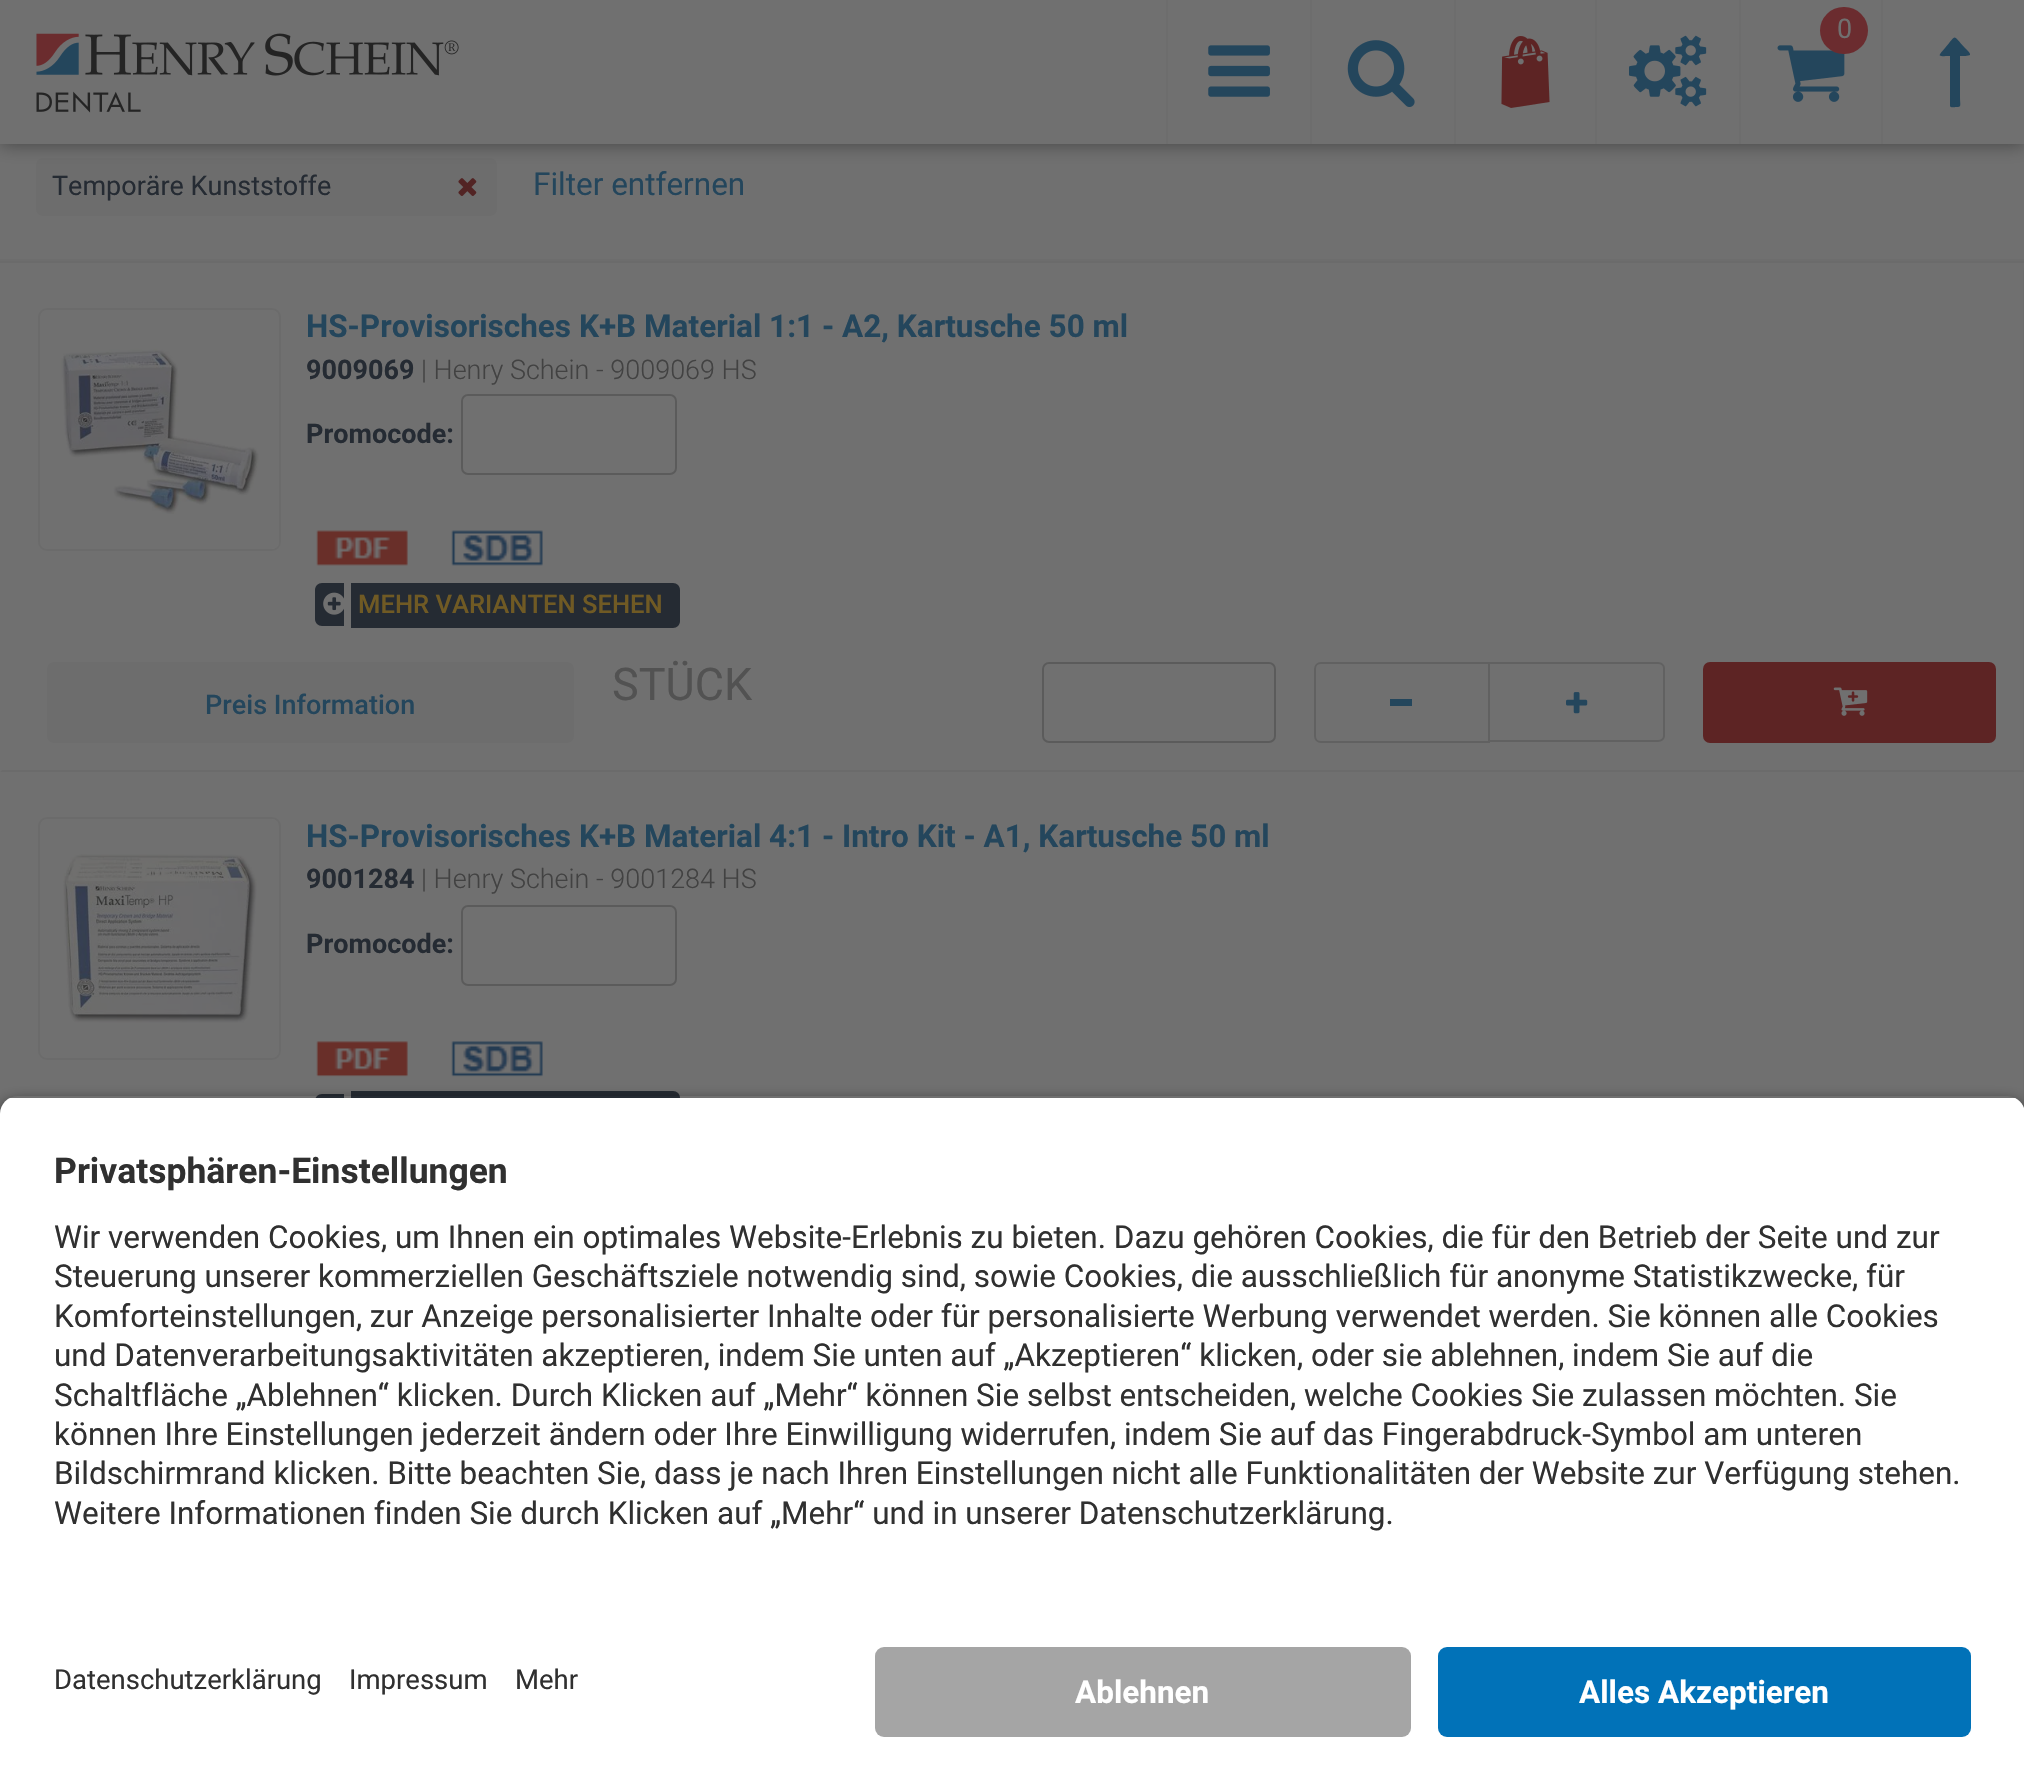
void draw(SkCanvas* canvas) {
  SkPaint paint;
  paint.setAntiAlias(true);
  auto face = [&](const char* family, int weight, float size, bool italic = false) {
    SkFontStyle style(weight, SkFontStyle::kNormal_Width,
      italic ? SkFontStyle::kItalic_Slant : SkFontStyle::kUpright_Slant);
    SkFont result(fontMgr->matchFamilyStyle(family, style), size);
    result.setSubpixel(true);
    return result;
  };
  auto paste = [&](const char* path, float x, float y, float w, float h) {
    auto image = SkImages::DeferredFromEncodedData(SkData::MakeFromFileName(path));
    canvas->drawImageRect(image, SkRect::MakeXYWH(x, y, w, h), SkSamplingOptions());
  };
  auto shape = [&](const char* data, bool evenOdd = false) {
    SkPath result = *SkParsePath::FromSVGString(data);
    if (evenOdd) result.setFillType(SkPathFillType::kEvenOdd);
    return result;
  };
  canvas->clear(0xff707070);
  paint.setColor(0xff6d6d6d);
  canvas->drawRoundRect(SkRect::MakeXYWH(36, 158, 461, 58), 7, 7, paint);
  paint.setColor(0xff424242);
  paint.setMaskFilter(SkMaskFilter::MakeBlur(kNormal_SkBlurStyle, 9));
  canvas->drawRect(SkRect::MakeXYWH(0, 0, 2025, 144), paint);
  paint.setMaskFilter(nullptr);
  paint.setColor(0xff707070);
  canvas->drawRect(SkRect::MakeXYWH(0, 0, 2024, 144), paint);
  paint.setColor(0xff6d6d6d);
  canvas->drawRect(SkRect::MakeXYWH(1166, 0, 2, 144), paint);
  paste("img/1.png", 1208, 45, 62, 52);
  canvas->drawRect(SkRect::MakeXYWH(1310, 0, 2, 144), paint);
  paste("img/2.png", 1347, 40, 68, 67);
  canvas->drawRect(SkRect::MakeXYWH(1454, 0, 2, 144), paint);
  paste("img/3.png", 1501, 36, 49, 72);
  canvas->drawRect(SkRect::MakeXYWH(1595, 0, 2, 144), paint);
  paste("img/4.png", 1629, 35, 78, 72);
  canvas->drawRect(SkRect::MakeXYWH(1739, 0, 2, 144), paint);
  paste("img/5.png", 1777, 45, 68, 57);
  paint.setColor(0xff6b2c2f);
  canvas->drawRoundRect(SkRect::MakeXYWH(1820, 7, 48, 47), 23.5f, 23.5f, paint);
  paint.setColor(0xff6d6d6d);
  canvas->drawRect(SkRect::MakeXYWH(1881, 0, 2, 144), paint);
  paint.setColor(0xff24465c);
  canvas->drawPath(shape("M1970 55C1969 56 1962 56 1960 56V97C1960 106 1962 107 1956 107C1955 107 1950 108 1950 106V56C1939 56 1936 58 1945 48C1957 34 1952 34 1965 48C1966 49 1971 53 1970 55Z"), paint);
  paste("img/6.png", 36, 33, 423, 80);
  paint.setColor(0xff6d6d6d);
  canvas->drawRect(SkRect::MakeXYWH(0, 259, 2024, 2), paint);
  paste("img/7.png", 458, 178, 19, 18);
  paint.setColor(0xff6b6b6b);
  canvas->drawRect(SkRect::MakeXYWH(0, 261, 2024, 2), paint);
  paint.setColor(0xff6d6d6d);
  canvas->drawPath(shape("M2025 263V772L2023 770V272Z"), paint);
  paint.setColor(0xff6b6b6b);
  canvas->drawPath(shape("M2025 772H0L2 770H2023Z"), paint);
  paint.setStroke(true);
  paint.setStrokeWidth(2);
  canvas->drawRoundRect(SkRect::MakeXYWH(39, 309, 241, 241), 8, 8, paint);
  paste("img/8.png", 60, 348, 219, 201);
  paint.setColor(0xff5b5b5b);
  canvas->drawRoundRect(SkRect::MakeXYWH(462, 395, 214, 79), 6, 6, paint);
  paste("img/9.png", 316, 530, 92, 36);
  paste("img/10.png", 451, 530, 92, 36);
  paint.setStroke(false);
  paint.setColor(0xff252b33);
  canvas->drawPath(shape("M322 583H344V626H322C318 626 315 623 315 619V590C315 586 318 583 322 583Z"), paint);
  paste("img/11.png", 323, 592, 21, 23);
  canvas->drawRect(SkRect::MakeXYWH(351, 583, 7, 45), paint);
  canvas->drawPath(shape("M358 583H673C677 583 680 586 680 590V621C680 625 677 628 673 628H358Z"), paint);
  paint.setStroke(true);
  paint.setColor(0xff5b5b5b);
  canvas->drawRoundRect(SkRect::MakeXYWH(1043, 663, 232, 79), 6, 6, paint);
  paint.setColor(0xff616161);
  canvas->drawPath(shape("M1321 663H1489V742H1321C1317.5 742 1315 739.5 1315 736V669C1315 665.5 1317.5 663 1321 663Z"), paint);
  paint.setStroke(false);
  paint.setColor(0xff24465c);
  canvas->drawRect(SkRect::MakeXYWH(1390, 699, 22, 7), paint);
  paint.setColor(0xff616161);
  canvas->drawPath(shape("M1490 662H1658C1662 662 1665 665 1665 668V736C1665 739 1662 742 1658 742H1490ZM1490 664H1658C1661 664 1663 666 1663 668V736C1663 738 1661 740 1658 740H1490Z", true), paint);
  paste("img/12.png", 1566, 692, 22, 22);
  paint.setColor(0xff5d2424);
  canvas->drawRoundRect(SkRect::MakeXYWH(1703, 662, 293, 81), 7, 7, paint);
  paste("img/13.png", 1833, 687, 35, 29);
  paint.setColor(0xff6d6d6d);
  canvas->drawRoundRect(SkRect::MakeXYWH(47, 662, 527, 81), 7, 7, paint);
  canvas->drawPath(shape("M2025 772V1282L2023 1280V781Z"), paint);
  paint.setStroke(true);
  paint.setColor(0xff6b6b6b);
  canvas->drawRoundRect(SkRect::MakeXYWH(39, 818, 241, 241), 8, 8, paint);
  paste("img/14.png", 63, 819, 212, 204);
  paint.setColor(0xff5b5b5b);
  canvas->drawRoundRect(SkRect::MakeXYWH(462, 906, 214, 79), 6, 6, paint);
  paste("img/15.png", 316, 1041, 92, 36);
  paste("img/16.png", 451, 1041, 92, 36);
  paint.setStroke(false);
  paint.setColor(0xff252b33);
  canvas->drawPath(shape("M322 1094H344V1136H322C318 1136 315 1133 315 1129V1101C315 1097 318 1094 322 1094Z"), paint);
  canvas->drawRect(SkRect::MakeXYWH(351, 1091, 7, 7), paint);
  canvas->drawPath(shape("M358 1091H673C677 1091 680 1094 680 1098V1132C680 1136 677 1139 673 1139H358Z"), paint);
  canvas->save();
  canvas->clipPath(shape("M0 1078H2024V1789H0ZM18 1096H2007C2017 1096 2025 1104 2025 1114V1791H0V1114C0 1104 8 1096 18 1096Z", true), true);
  paint.setColor(0xcc000000);
  paint.setMaskFilter(SkMaskFilter::MakeBlur(kNormal_SkBlurStyle, 8));
  canvas->drawRoundRect(SkRect::MakeXYWH(0, 1103, 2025, 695), 18, 18, paint);
  paint.setMaskFilter(nullptr);
  canvas->restore();
  canvas->save();
  canvas->clipPath(shape("M18 1096H2007C2017 1096 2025 1104 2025 1114V1629H0V1114C0 1104 8 1096 18 1096Z"), true);
  paint.setColor(0xffffffff);
  canvas->drawRect(SkRect::MakeXYWH(0, 1098, 2024, 531), paint);
  canvas->restore();
  canvas->drawRect(SkRect::MakeXYWH(0, 1629, 2024, 160), paint);
  paint.setColor(0xffa5a5a5);
  canvas->drawRoundRect(SkRect::MakeXYWH(875, 1647, 536, 90), 9, 9, paint);
  paint.setColor(0xff0172b8);
  canvas->drawRoundRect(SkRect::MakeXYWH(1438, 1647, 533, 90), 9, 9, paint);
  auto f0 = face("Roboto", 400, 27);
  paint.setColor(0xff707070);
  canvas->drawString("0", 1837, 38, f0, paint);
  paint.setColor(0xff252b33);
  canvas->drawString("Temporäre Kunststoffe", 52, 195, f0, paint);
  auto f1 = face("Roboto", 400, 31.5f);
  paint.setColor(0xff24465c);
  canvas->drawString("Filter entfernen", 533, 195, f1, paint);
  auto f2 = face("Roboto", 700, 31.5f);
  canvas->drawString("HS-Provisorisches K+B Material 1:1 - A2, Kartusche 50 ml", 306, 337, f2, paint);
  auto f3 = face("Roboto", 700, 27);
  paint.setColor(0xff252b33);
  canvas->drawString("9009069", 306, 379, f3, paint);
  auto f4 = face("Roboto", 300, 27);
  paint.setColor(0xff424242);
  canvas->drawString("| Henry Schein - 9009069 HS", 421, 379, f4, paint);
  paint.setColor(0xff252b33);
  canvas->drawString("Promocode:", 306, 443, f3, paint);
  auto f5 = face("Roboto", 500, 25.6f);
  paint.setColor(0xff705a24);
  canvas->drawString("MEHR VARIANTEN SEHEN", 358, 613, f5, paint);
  auto f6 = face("Roboto", 400, 45);
  paint.setColor(0xff525252);
  canvas->drawString("STÜCK", 612, 700, f6, paint);
  auto f7 = face("Roboto", 500, 27);
  paint.setColor(0xff24465c);
  canvas->drawString("Preis Information", 205, 714, f7, paint);
  canvas->drawString("HS-Provisorisches K+B Material 4:1 - Intro Kit - A1, Kartusche 50 ml", 306, 847, f2, paint);
  paint.setColor(0xff252b33);
  canvas->drawString("9001284", 306, 888, f3, paint);
  paint.setColor(0xff424242);
  canvas->drawString("| Henry Schein - 9001284 HS", 421, 888, f4, paint);
  paint.setColor(0xff252b33);
  canvas->drawString("Promocode:", 306, 953, f3, paint);
  auto f8 = face("Roboto", 700, 35.5f);
  paint.setColor(0xff303030);
  canvas->drawString("Privatsphären-Einstellungen", 54, 1183, f8, paint);
  {
    const struct { const char* s; float x, y; } items[] = {
      {"Wir verwenden Cookies, um Ihnen ein optimales Website-Erlebnis zu bieten. Dazu gehören Cookies, die für den Betrieb der Seite und zur", 54, 1248},
      {"Steuerung unserer kommerziellen Geschäftsziele notwendig sind, sowie Cookies, die ausschließlich für anonyme Statistikzwecke, für", 54, 1287},
      {"Komforteinstellungen, zur Anzeige personalisierter Inhalte oder für personalisierte Werbung verwendet werden. Sie können alle Cookies", 54, 1327},
      {"und Datenverarbeitungsaktivitäten akzeptieren, indem Sie unten auf „Akzeptieren“ klicken, oder sie ablehnen, indem Sie auf die", 54, 1366},
      {"Schaltfläche „Ablehnen“ klicken. Durch Klicken auf „Mehr“ können Sie selbst entscheiden, welche Cookies Sie zulassen möchten. Sie", 54, 1406},
      {"können Ihre Einstellungen jederzeit ändern oder Ihre Einwilligung widerrufen, indem Sie auf das Fingerabdruck-Symbol am unteren", 54, 1445},
      {"Bildschirmrand klicken. Bitte beachten Sie, dass je nach Ihren Einstellungen nicht alle Funktionalitäten der Website zur Verfügung stehen.", 54, 1484},
      {"Weitere Informationen finden Sie durch Klicken auf „Mehr“ und in unserer Datenschutzerklärung.", 54, 1524},
    };
    for (auto [s, x, y] : items) {
      canvas->drawString(s, x, y, f1, paint);
    }
  }
  auto f9 = face("Roboto", 400, 27.5f);
  {
    const struct { const char* s; float x, y; } items[] = {
      {"Datenschutzerklärung", 54, 1689},
      {"Impressum", 349, 1689},
      {"Mehr", 515, 1689},
    };
    for (auto [s, x, y] : items) {
      canvas->drawString(s, x, y, f9, paint);
    }
  }
  paint.setColor(0xffffffff);
  canvas->drawString("Ablehnen", 1075, 1703, f2, paint);
  canvas->drawString("Alles Akzeptieren", 1579, 1703, f2, paint);
}
